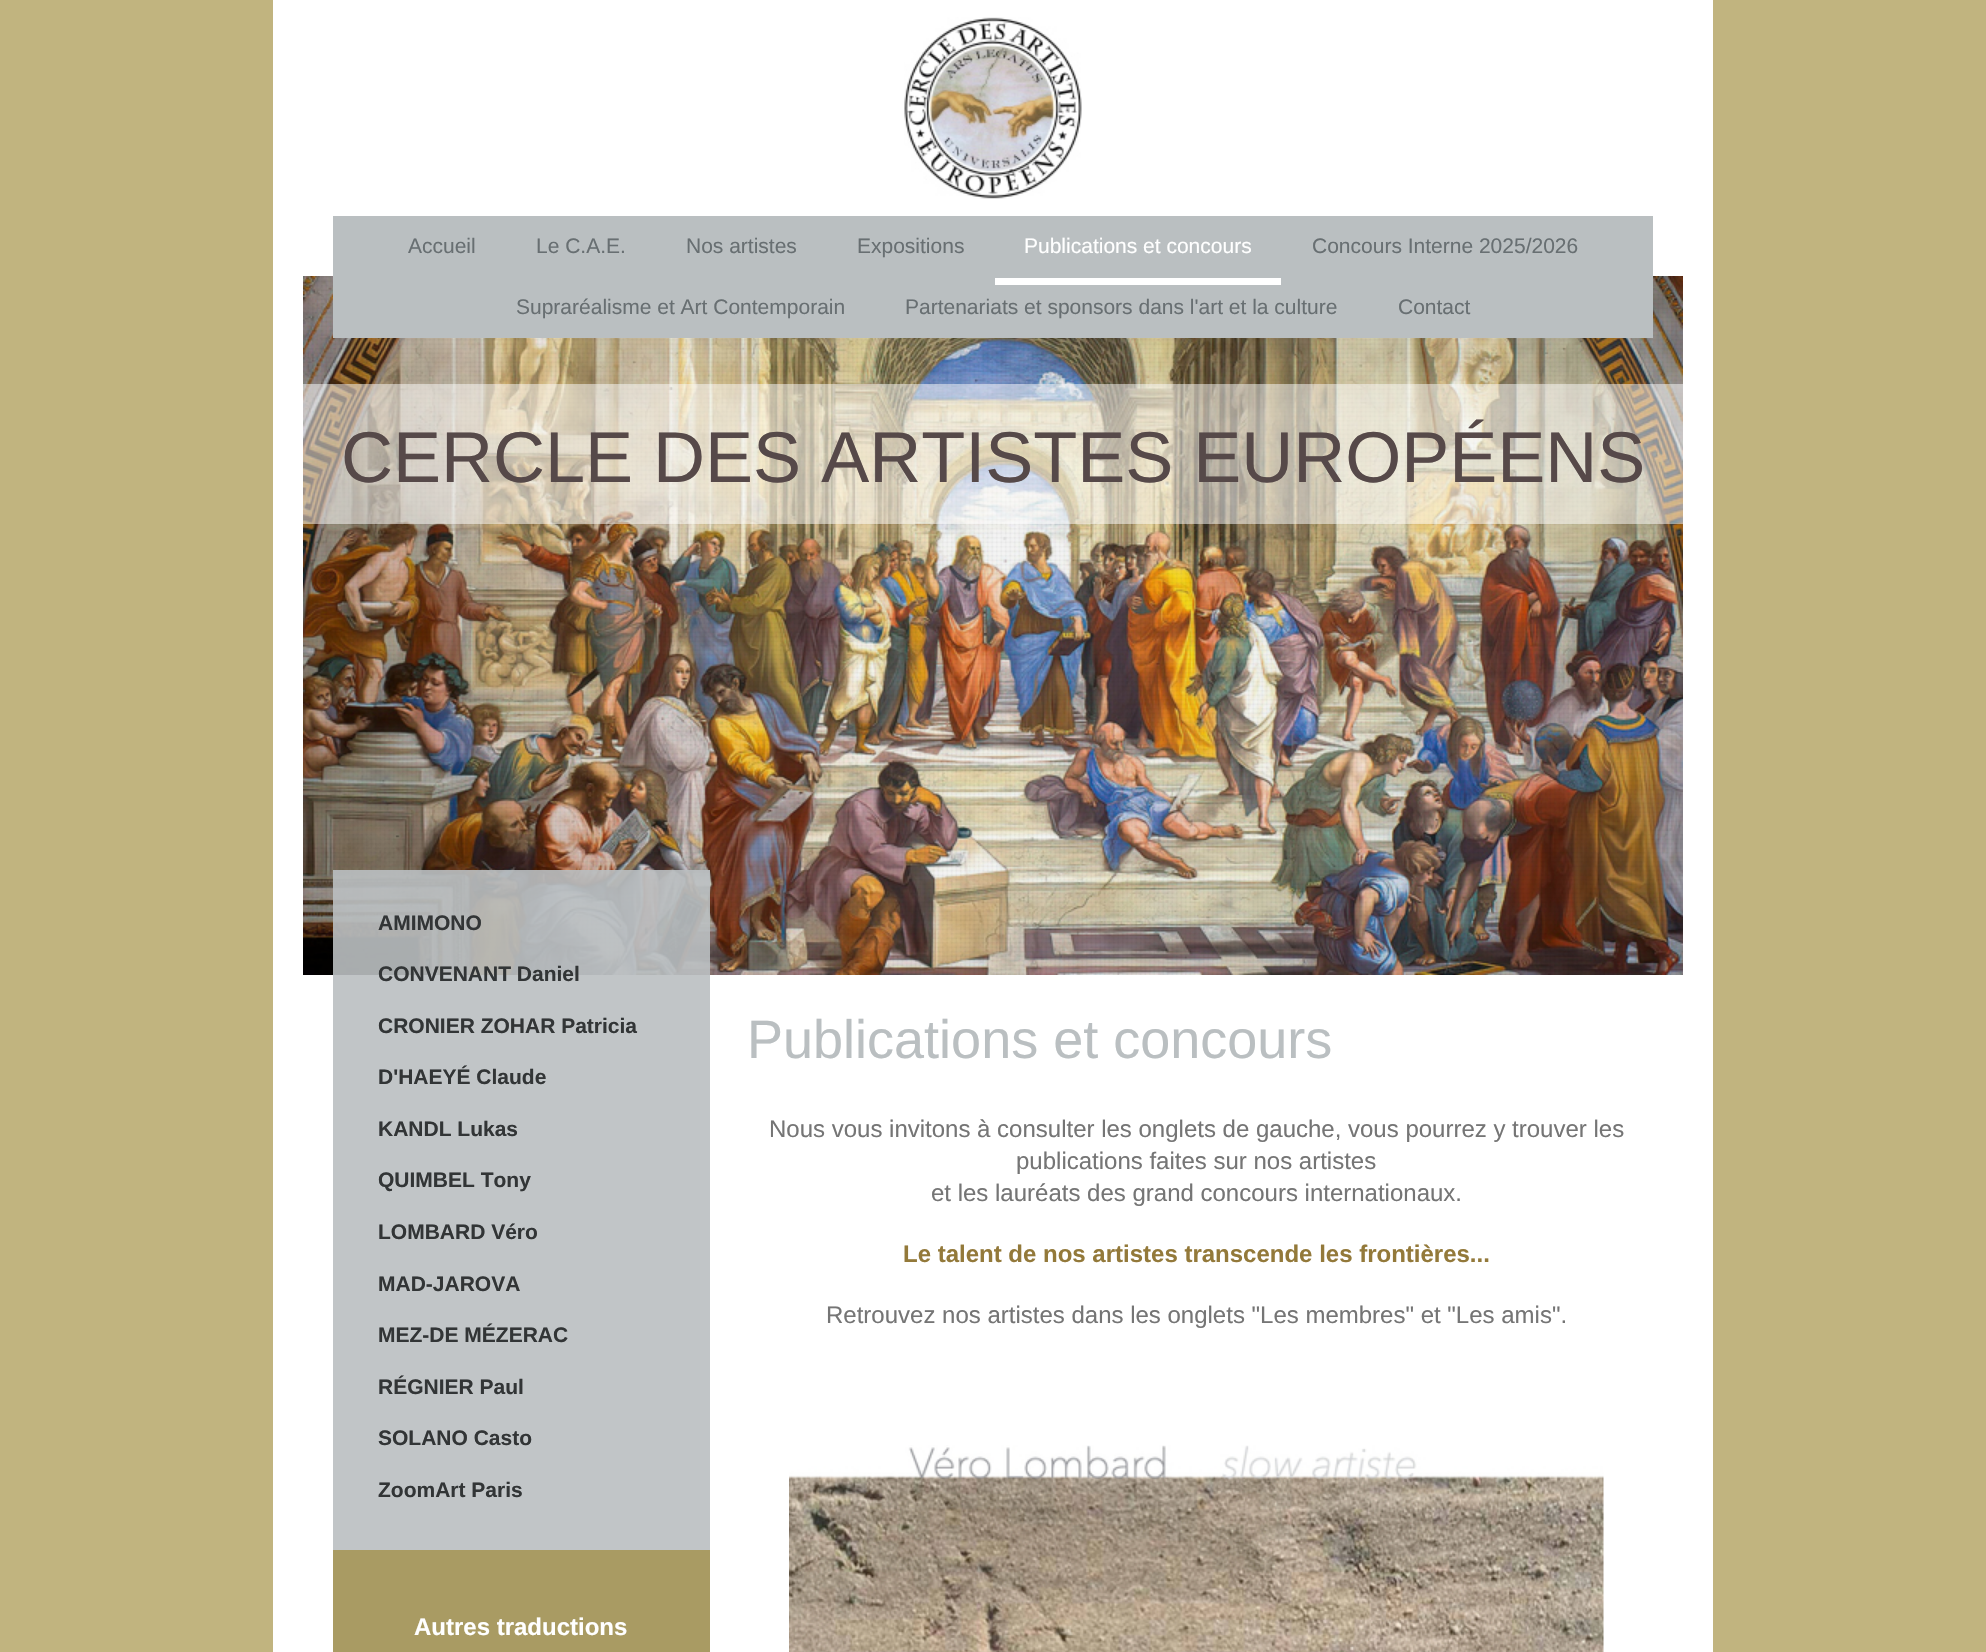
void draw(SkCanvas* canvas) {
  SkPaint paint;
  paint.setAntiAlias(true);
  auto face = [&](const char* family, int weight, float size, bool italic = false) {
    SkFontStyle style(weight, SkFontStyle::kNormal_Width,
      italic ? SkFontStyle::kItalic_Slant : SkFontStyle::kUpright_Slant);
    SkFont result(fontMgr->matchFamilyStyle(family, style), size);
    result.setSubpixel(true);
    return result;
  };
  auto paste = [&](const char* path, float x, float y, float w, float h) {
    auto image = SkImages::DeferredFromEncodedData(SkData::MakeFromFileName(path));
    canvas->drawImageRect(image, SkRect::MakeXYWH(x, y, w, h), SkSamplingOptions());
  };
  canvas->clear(0xffc1b47f);
  paint.setColor(0xffffffff);
  canvas->drawRect(SkRect::MakeXYWH(273, 0, 1440, 1652), paint);
  paste("img/1.png", 904, 17, 178, 182);
  paste("img/2.png", 303, 276, 1380, 699);
  paste("img/3.png", 303, 276, 1380, 699);
  {
    const struct { float x, y, w, h; SkColor color; } items[] = {
      {333, 216, 1320, 122, 0xffbabfc1},
      {995, 278, 286, 7, 0xffffffff},
      {303, 384, 1380, 140, 0x80ffffff},
      {333, 870, 377, 680, 0xe6babfc1},
      {333, 1550, 377, 102, 0xffa99b63},
    };
    for (auto [x, y, w, h, color] : items) {
      paint.setColor(color);
      canvas->drawRect(SkRect::MakeXYWH(x, y, w, h), paint);
    }
  }
  paste("img/4.png", 789, 1445, 815, 207);
  auto f0 = face("Liberation Sans", 400, 21);
  paint.setColor(0xff686f72);
  {
    const struct { const char* s; float x, y; } items[] = {
      {"Accueil", 408, 253},
      {"Le C.A.E.", 536, 253},
      {"Nos artistes", 686, 253},
      {"Expositions", 857, 253},
    };
    for (auto [s, x, y] : items) {
      canvas->drawString(s, x, y, f0, paint);
    }
  }
  paint.setColor(0xffffffff);
  canvas->drawString("Publications et concours", 1024, 253, f0, paint);
  paint.setColor(0xff686f72);
  {
    const struct { const char* s; float x, y; } items[] = {
      {"Concours Interne 2025/2026", 1312, 253},
      {"Supraréalisme et Art Contemporain", 516, 314},
      {"Partenariats et sponsors dans l'art et la culture", 905, 314},
      {"Contact", 1398, 314},
    };
    for (auto [s, x, y] : items) {
      canvas->drawString(s, x, y, f0, paint);
    }
  }
  auto f1 = face("Liberation Sans", 400, 72);
  paint.setColor(0xff564949);
  canvas->drawString("CERCLE DES ARTISTES EUROPÉENS", 341, 482, f1, paint);
  auto f2 = face("Liberation Sans", 700, 21);
  paint.setColor(0xff323536);
  {
    const struct { const char* s; float x, y; } items[] = {
      {"AMIMONO", 378, 930},
      {"CONVENANT Daniel", 378, 981},
      {"CRONIER ZOHAR Patricia", 378, 1033},
      {"D'HAEYÉ Claude", 378, 1084},
      {"KANDL Lukas", 378, 1136},
      {"QUIMBEL Tony", 378, 1187},
      {"LOMBARD Véro", 378, 1239},
      {"MAD-JAROVA", 378, 1291},
      {"MEZ-DE MÉZERAC", 378, 1342},
      {"RÉGNIER Paul", 378, 1394},
      {"SOLANO Casto", 378, 1445},
      {"ZoomArt Paris", 378, 1497},
    };
    for (auto [s, x, y] : items) {
      canvas->drawString(s, x, y, f2, paint);
    }
  }
  auto f3 = face("Liberation Sans", 700, 24);
  paint.setColor(0xffffffff);
  canvas->drawString("Autres traductions", 414, 1635, f3, paint);
  auto f4 = face("Liberation Sans", 400, 54);
  paint.setColor(0xffbabfc1);
  canvas->drawString("Publications et concours", 747, 1058, f4, paint);
  auto f5 = face("Liberation Sans", 400, 24);
  paint.setColor(0xff757575);
  {
    const struct { const char* s; float x, y; } items[] = {
      {"Nous vous invitons à consulter les onglets de gauche, vous pourrez y trouver les", 769, 1137},
      {"publications faites sur nos artistes", 1016, 1169},
      {"et les lauréats des grand concours internationaux.", 931, 1201},
    };
    for (auto [s, x, y] : items) {
      canvas->drawString(s, x, y, f5, paint);
    }
  }
  paint.setColor(0xff93793a);
  canvas->drawString("Le talent de nos artistes transcende les frontières...", 903, 1262, f3, paint);
  paint.setColor(0xff757575);
  canvas->drawString("Retrouvez nos artistes dans les onglets \"Les membres\" et \"Les amis\".", 826, 1323, f5, paint);
}
